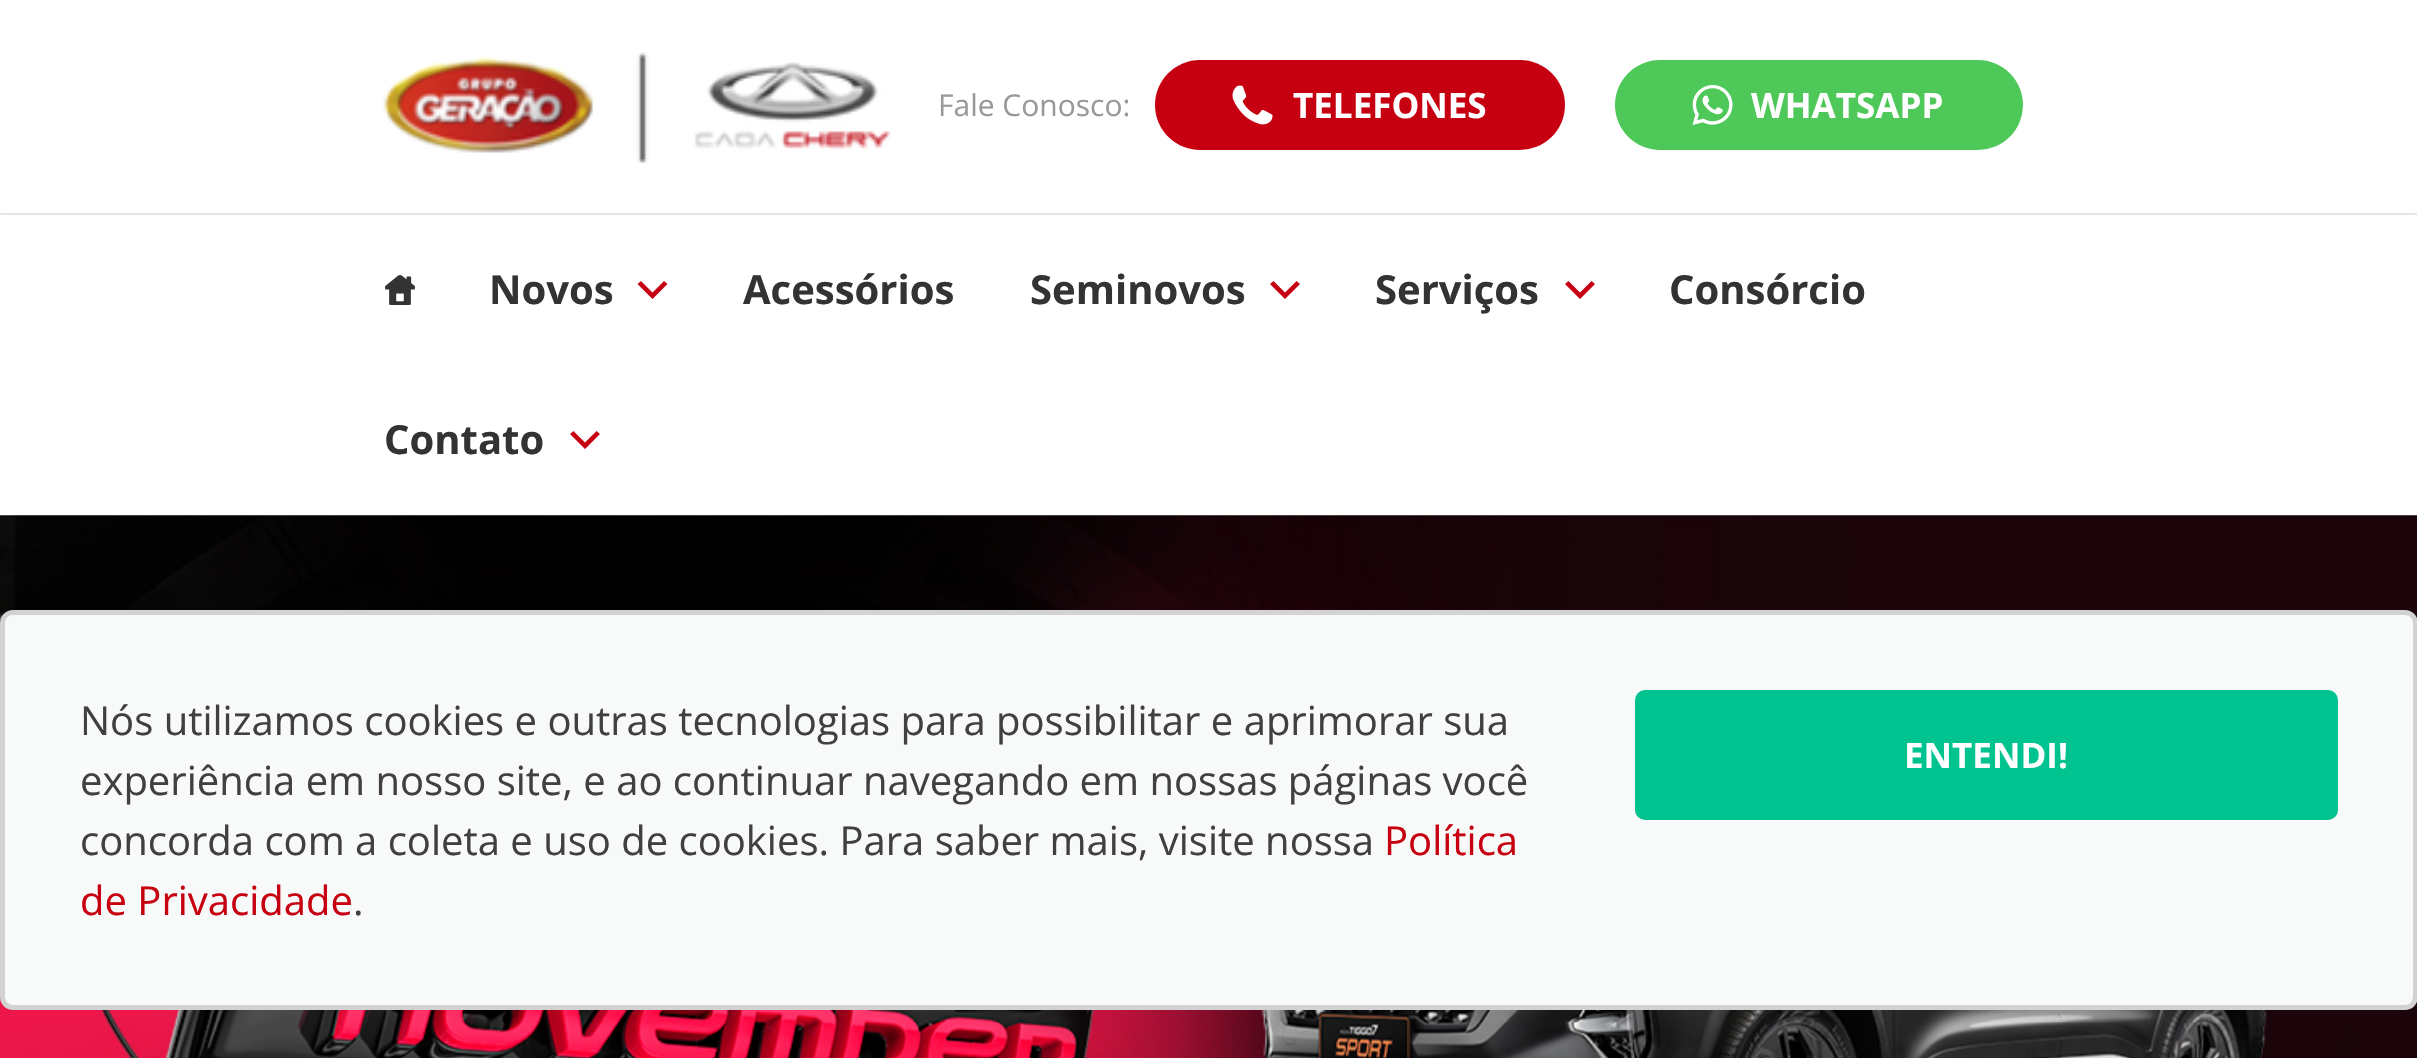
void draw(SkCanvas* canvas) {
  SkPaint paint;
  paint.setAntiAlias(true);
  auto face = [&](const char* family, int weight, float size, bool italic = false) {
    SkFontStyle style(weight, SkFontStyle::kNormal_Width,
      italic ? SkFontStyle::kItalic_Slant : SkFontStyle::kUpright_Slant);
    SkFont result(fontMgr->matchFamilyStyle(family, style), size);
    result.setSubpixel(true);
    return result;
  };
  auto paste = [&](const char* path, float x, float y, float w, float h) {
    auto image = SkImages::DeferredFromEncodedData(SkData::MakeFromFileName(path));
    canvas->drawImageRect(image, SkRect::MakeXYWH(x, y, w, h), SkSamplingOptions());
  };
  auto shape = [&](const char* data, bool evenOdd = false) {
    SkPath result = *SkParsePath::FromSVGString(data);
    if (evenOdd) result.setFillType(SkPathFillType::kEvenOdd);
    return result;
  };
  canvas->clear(0xffffffff);
  paint.setColor(0xffe8e8e8);
  canvas->drawRect(SkRect::MakeXYWH(0, 213, 2417, 2), paint);
  paste("img/1.png", 382, 52, 509, 111);
  paint.setColor(0xffc70011);
  canvas->drawRoundRect(SkRect::MakeXYWH(1155, 60, 410, 90), 45, 45, paint);
  paste("img/2.png", 1232, 85, 41, 40);
  paint.setColor(0xff4ec859);
  canvas->drawRoundRect(SkRect::MakeXYWH(1615, 60, 408, 90), 45, 45, paint);
  paste("img/3.png", 1692, 85, 41, 40);
  paste("img/5.png", 0, 515, 2417, 543);
  paint.setColor(0x0d000000);
  paint.setMaskFilter(SkMaskFilter::MakeBlur(kNormal_SkBlurStyle, 5));
  canvas->drawRect(SkRect::MakeXYWH(0, 220, 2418, 300), paint);
  paint.setMaskFilter(nullptr);
  paint.setColor(0xffffffff);
  canvas->drawRect(SkRect::MakeXYWH(0, 216, 2417, 299), paint);
  paste("img/4.png", 385, 275, 30, 30);
  paint.setColor(0xffc70011);
  canvas->drawPath(shape("M641 281L652.5 292.5L664 281L667.5 284L652.5 299L637.5 284Z"), paint);
  canvas->drawPath(shape("M1273.5 281L1285 292.5L1296.5 281L1300 284L1285 299L1270 284Z"), paint);
  canvas->drawPath(shape("M1568.5 281L1580 292.5L1591.5 281L1595 284L1580 299L1565 284Z"), paint);
  canvas->drawPath(shape("M573.5 431L585 442.5L596.5 431L600 434L585 449L570 434Z"), paint);
  paint.setColor(0xfff8f9f9);
  canvas->drawRoundRect(SkRect::MakeXYWH(2.5f, 612.5f, 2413, 395), 10.5f, 10.5f, paint);
  paint.setStroke(true);
  paint.setStrokeWidth(5);
  paint.setColor(0xffd2d2d2);
  canvas->drawRoundRect(SkRect::MakeXYWH(2.5f, 612.5f, 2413, 395), 10.5f, 10.5f, paint);
  paint.setStroke(false);
  paint.setColor(0xff00c390);
  canvas->drawRoundRect(SkRect::MakeXYWH(1635, 690, 703, 130), 10, 10, paint);
  auto f0 = face("Open Sans", 400, 30);
  paint.setColor(0xff999999);
  canvas->drawString("Fale Conosco:", 938, 116, f0, paint);
  auto f1 = face("Open Sans", 700, 35);
  paint.setColor(0xffffffff);
  canvas->drawString("TELEFONES", 1293, 118, f1, paint);
  canvas->drawString("WHATSAPP", 1751, 118, f1, paint);
  auto f2 = face("Open Sans", 700, 40);
  paint.setColor(0xff333333);
  {
    const struct { const char* s; float x, y; } items[] = {
      {"Novos", 489, 304},
      {"Acessórios", 743, 304},
      {"Seminovos", 1030, 304},
      {"Serviços", 1375, 304},
      {"Consórcio", 1669, 304},
      {"Contato", 384, 454},
    };
    for (auto [s, x, y] : items) {
      canvas->drawString(s, x, y, f2, paint);
    }
  }
  auto f3 = face("Open Sans", 400, 40);
  paint.setColor(0xff404040);
  {
    const struct { const char* s; float x, y; } items[] = {
      {"Nós utilizamos cookies e outras tecnologias para possibilitar e aprimorar sua", 80, 735},
      {"experiência em nosso site, e ao continuar navegando em nossas páginas você", 80, 795},
      {"concorda com a coleta e uso de cookies. Para saber mais, visite nossa", 80, 855},
    };
    for (auto [s, x, y] : items) {
      canvas->drawString(s, x, y, f3, paint);
    }
  }
  paint.setColor(0xffc70011);
  canvas->drawString("Política", 1384, 855, f3, paint);
  canvas->drawString("de Privacidade", 80, 915, f3, paint);
  paint.setColor(0xff404040);
  canvas->drawString(".", 353, 915, f3, paint);
  paint.setColor(0xffffffff);
  canvas->drawString("ENTENDI!", 1904, 768, f1, paint);
}
